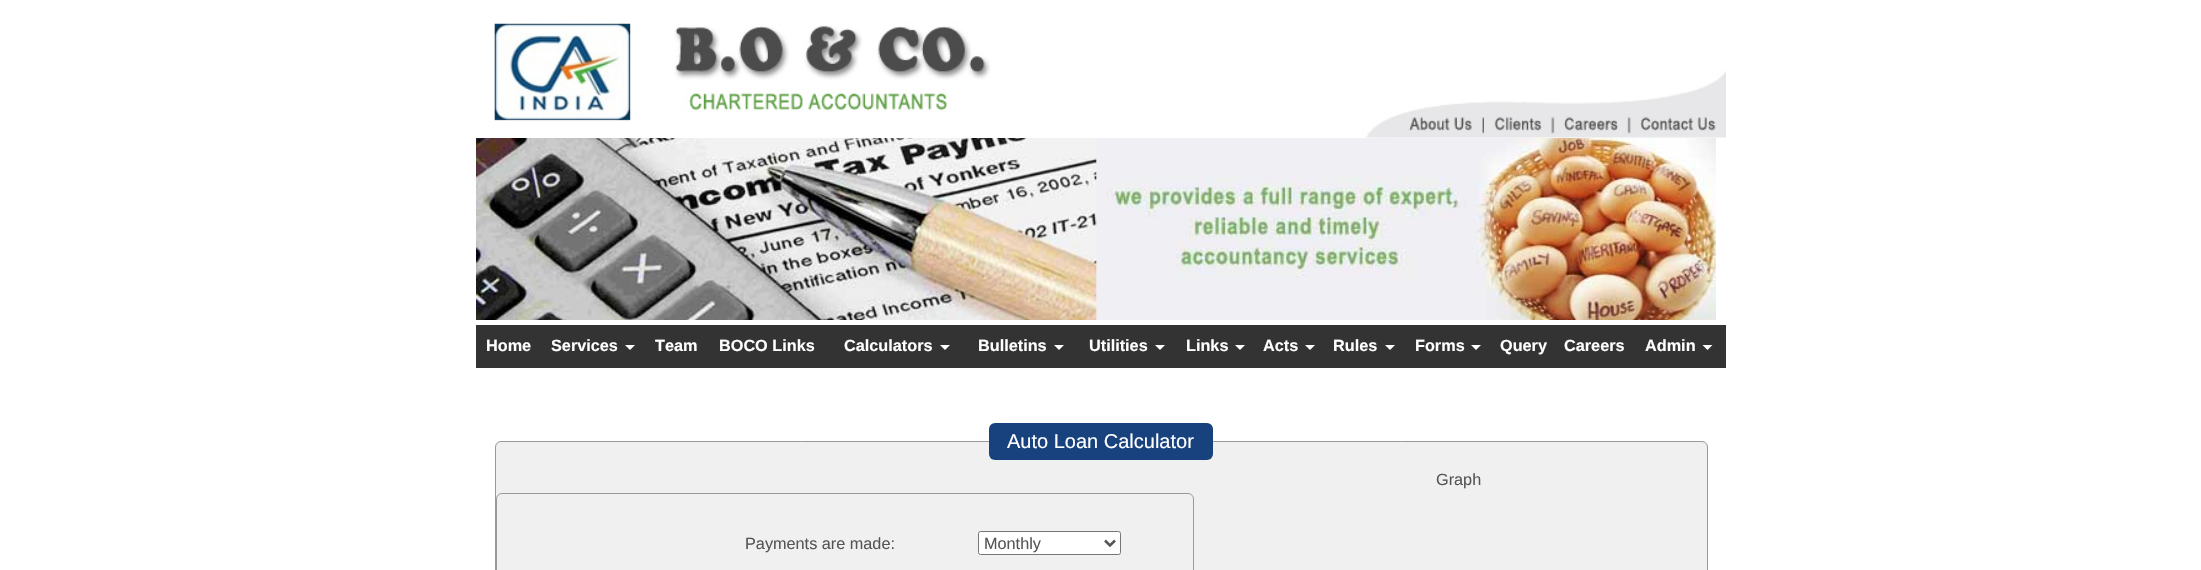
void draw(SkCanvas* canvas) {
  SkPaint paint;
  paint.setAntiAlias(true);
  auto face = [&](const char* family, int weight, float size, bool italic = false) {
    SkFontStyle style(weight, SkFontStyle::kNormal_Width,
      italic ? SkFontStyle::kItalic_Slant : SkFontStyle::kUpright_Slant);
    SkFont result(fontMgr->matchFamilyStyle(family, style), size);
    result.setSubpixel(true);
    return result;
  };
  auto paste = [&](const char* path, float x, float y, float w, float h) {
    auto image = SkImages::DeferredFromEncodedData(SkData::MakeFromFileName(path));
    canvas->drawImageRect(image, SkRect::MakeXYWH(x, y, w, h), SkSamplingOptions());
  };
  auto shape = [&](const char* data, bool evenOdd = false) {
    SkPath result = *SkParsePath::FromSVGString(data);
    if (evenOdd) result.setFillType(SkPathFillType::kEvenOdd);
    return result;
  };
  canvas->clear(0xffffffff);
  paste("img/1.png", 494, 20, 1232, 118);
  paste("img/2.png", 476, 138, 1240, 182);
  paint.setColor(0xff333333);
  canvas->drawRect(SkRect::MakeXYWH(476, 325, 1250, 43), paint);
  paint.setColor(0xffffffff);
  canvas->drawPath(shape("M625 345H635L630 350Z"), paint);
  canvas->drawPath(shape("M940 345H950L945 350Z"), paint);
  canvas->drawPath(shape("M1054 345H1064L1059 350Z"), paint);
  canvas->drawPath(shape("M1155 345H1165L1160 350Z"), paint);
  canvas->drawPath(shape("M1235 345H1245L1240 350Z"), paint);
  canvas->drawPath(shape("M1305 345H1315L1310 350Z"), paint);
  canvas->drawPath(shape("M1385 345H1395L1390 350Z"), paint);
  canvas->drawPath(shape("M1471 345H1481L1476 350Z"), paint);
  canvas->drawPath(shape("M1702.5 345H1712.5L1707.5 350Z"), paint);
  paint.setColor(0xfff0f0f0);
  canvas->drawRoundRect(SkRect::MakeXYWH(495.5f, 441.5f, 1212, 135), 5.5f, 5.5f, paint);
  paint.setStroke(true);
  paint.setStrokeWidth(1);
  paint.setColor(0xff999999);
  canvas->drawRoundRect(SkRect::MakeXYWH(495.5f, 441.5f, 1212, 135), 5.5f, 5.5f, paint);
  paint.setStroke(false);
  paint.setColor(0xff18427d);
  canvas->drawRoundRect(SkRect::MakeXYWH(989, 423, 224, 37), 6, 6, paint);
  paint.setStroke(true);
  paint.setColor(0xff999999);
  canvas->drawRoundRect(SkRect::MakeXYWH(496.5f, 493.5f, 697, 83), 5.5f, 5.5f, paint);
  paint.setStroke(false);
  paint.setColor(0xffffffff);
  canvas->drawRoundRect(SkRect::MakeXYWH(978.5f, 531.5f, 142, 23), 2, 2, paint);
  paint.setStroke(true);
  paint.setColor(0xff767676);
  canvas->drawRoundRect(SkRect::MakeXYWH(978.5f, 531.5f, 142, 23), 2, 2, paint);
  paint.setStrokeWidth(2.5f);
  paint.setColor(0xff555555);
  canvas->drawPath(shape("M1105 540.5L1110 545.5L1115 540.5"), paint);
  auto f0 = face("Liberation Sans", 700, 16.25f);
  paint.setStroke(false);
  paint.setColor(0xffffffff);
  {
    const struct { const char* s; float x, y; } items[] = {
      {"Home", 486, 351},
      {"Services", 551, 351},
      {"Team", 655, 351},
      {"BOCO Links", 719, 351},
      {"Calculators", 844, 351},
      {"Bulletins", 978, 351},
      {"Utilities", 1089, 351},
      {"Links", 1186, 351},
      {"Acts", 1263, 351},
      {"Rules", 1333, 351},
      {"Forms", 1415, 351},
      {"Query", 1500, 351},
      {"Careers", 1564, 351},
      {"Admin", 1645, 351},
    };
    for (auto [s, x, y] : items) {
      canvas->drawString(s, x, y, f0, paint);
    }
  }
  auto f1 = face("Liberation Sans", 400, 20);
  canvas->drawString("Auto Loan Calculator", 1007, 448, f1, paint);
  auto f2 = face("Liberation Sans", 400, 16.25f);
  paint.setColor(0xff555555);
  {
    const struct { const char* s; float x, y; } items[] = {
      {"Graph", 1436, 485},
      {"Payments are made:", 745, 549},
      {"Monthly", 984, 549},
    };
    for (auto [s, x, y] : items) {
      canvas->drawString(s, x, y, f2, paint);
    }
  }
}
